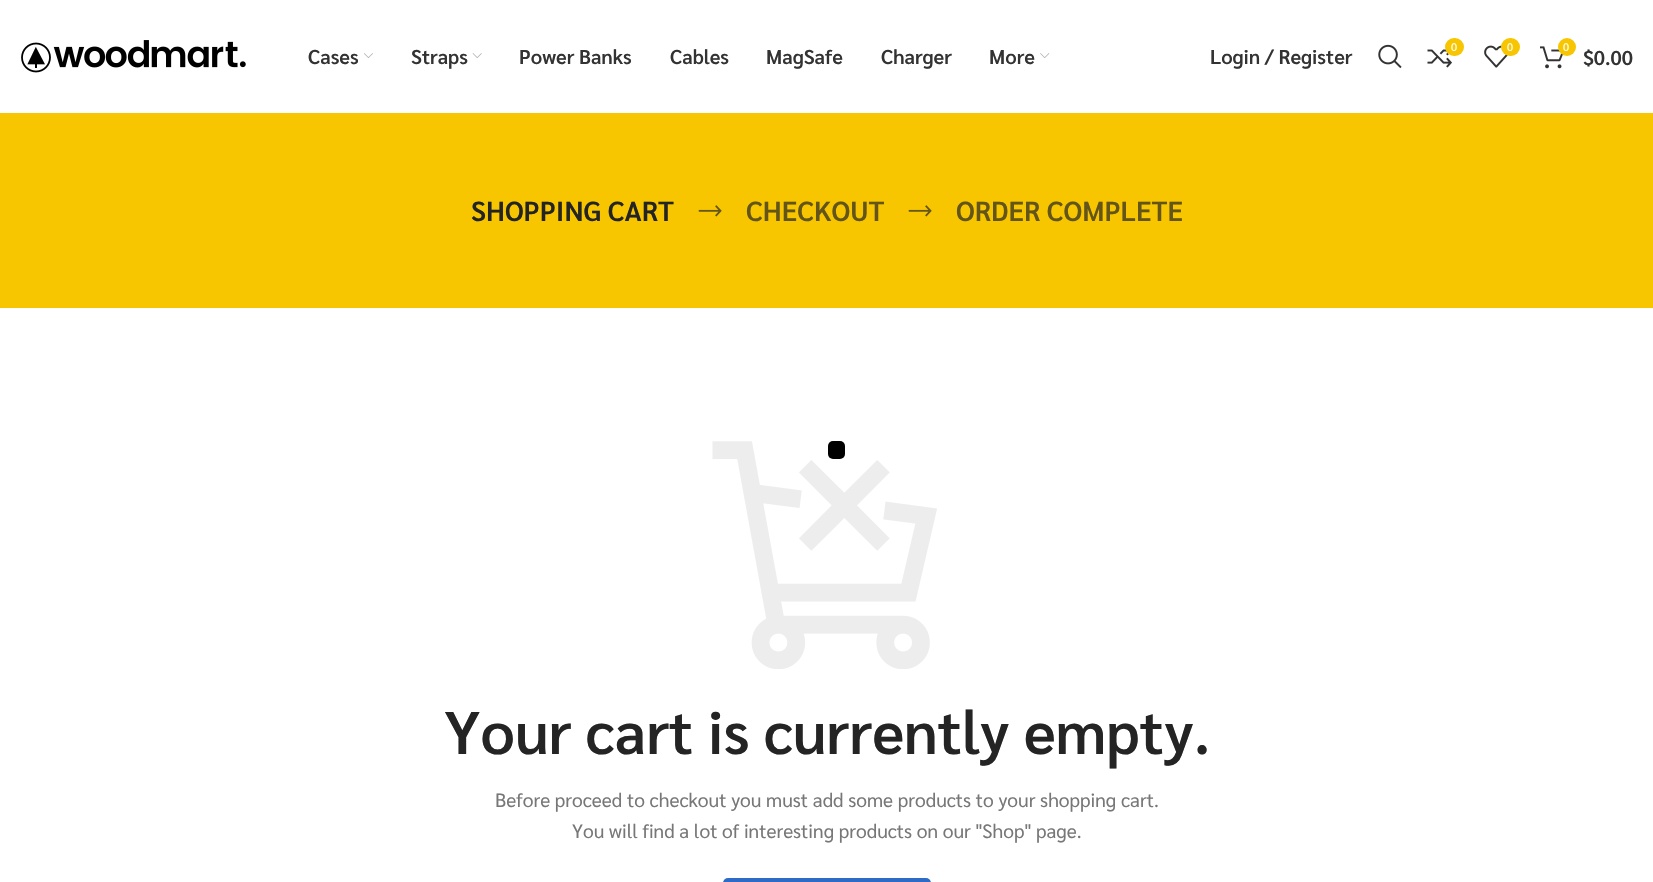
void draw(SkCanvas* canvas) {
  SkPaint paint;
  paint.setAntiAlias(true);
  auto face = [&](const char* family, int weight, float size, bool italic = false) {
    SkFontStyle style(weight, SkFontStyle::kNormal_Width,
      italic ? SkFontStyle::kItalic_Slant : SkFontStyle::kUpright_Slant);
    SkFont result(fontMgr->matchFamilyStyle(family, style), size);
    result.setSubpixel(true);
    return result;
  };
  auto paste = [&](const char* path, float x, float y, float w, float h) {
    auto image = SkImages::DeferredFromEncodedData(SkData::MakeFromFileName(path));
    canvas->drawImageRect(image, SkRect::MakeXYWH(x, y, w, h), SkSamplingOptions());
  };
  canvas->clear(0xffffffff);
  paste("img/1.png", 21, 40, 225, 33);
  paste("img/2.png", 364, 53, 9, 5);
  paste("img/3.png", 472, 53, 10, 5);
  paste("img/4.png", 1040, 53, 10, 5);
  paste("img/5.png", 1378, 44, 24, 25);
  paste("img/6.png", 1427, 49, 25, 19);
  paint.setColor(0xfff7c600);
  canvas->drawRoundRect(SkRect::MakeXYWH(1445, 38, 19, 18), 9, 9, paint);
  paste("img/7.png", 1484, 45, 24, 23);
  canvas->drawRoundRect(SkRect::MakeXYWH(1501, 38, 19, 18), 9, 9, paint);
  paste("img/8.png", 1540, 46, 23, 23);
  canvas->drawCircle(1567, 47, 9, paint);
  canvas->drawRect(SkRect::MakeXYWH(0, 113, 1653, 195), paint);
  paste("img/9.png", 698, 205, 24, 12);
  paste("img/9.png", 908, 205, 24, 12);
  paste("img/10.png", 712, 441, 225, 228);
  paint.setColor(0xff2e6bc6);
  canvas->drawRoundRect(SkRect::MakeXYWH(723, 878, 208, 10), 6, 6, paint);
  paint.setColor(0xff000000);
  canvas->drawRoundRect(SkRect::MakeXYWH(828, 441, 17, 18), 5, 5, paint);
  auto f0 = face("Sarabun", 600, 20);
  paint.setColor(0xff333333);
  {
    const struct { const char* s; float x, y; } items[] = {
      {"Cases", 308, 64},
      {"Straps", 411, 64},
      {"Power Banks", 519, 64},
      {"Cables", 670, 64},
      {"MagSafe", 766, 64},
      {"Charger", 881, 64},
      {"More", 989, 64},
      {"Login / Register", 1210, 64},
    };
    for (auto [s, x, y] : items) {
      canvas->drawString(s, x, y, f0, paint);
    }
  }
  auto f1 = face("Sarabun", 400, 11);
  paint.setColor(0xffffffff);
  {
    const struct { const char* s; float x, y; } items[] = {
      {"0", 1451, 51},
      {"0", 1507, 51},
      {"0", 1563, 51},
    };
    for (auto [s, x, y] : items) {
      canvas->drawString(s, x, y, f1, paint);
    }
  }
  paint.setColor(0xff333333);
  canvas->drawString("$0.00", 1583, 65, f0, paint);
  auto f2 = face("Sarabun", 600, 27.5f);
  paint.setColor(0xff242424);
  canvas->drawString("SHOPPING CART", 471, 221, f2, paint);
  paint.setColor(0xff635519);
  canvas->drawString("CHECKOUT", 746, 221, f2, paint);
  canvas->drawString("ORDER COMPLETE", 956, 221, f2, paint);
  auto f3 = face("Sarabun", 600, 60);
  paint.setColor(0xff242424);
  canvas->drawString("Your cart is currently empty.", 444, 754, f3, paint);
  auto f4 = face("Sarabun", 400, 19.25f);
  paint.setColor(0xff777777);
  canvas->drawString("Before proceed to checkout you must add some products to your shopping cart.", 495, 807, f4, paint);
  canvas->drawString("You will find a lot of interesting products on our \"Shop\" page.", 572, 838, f4, paint);
}
